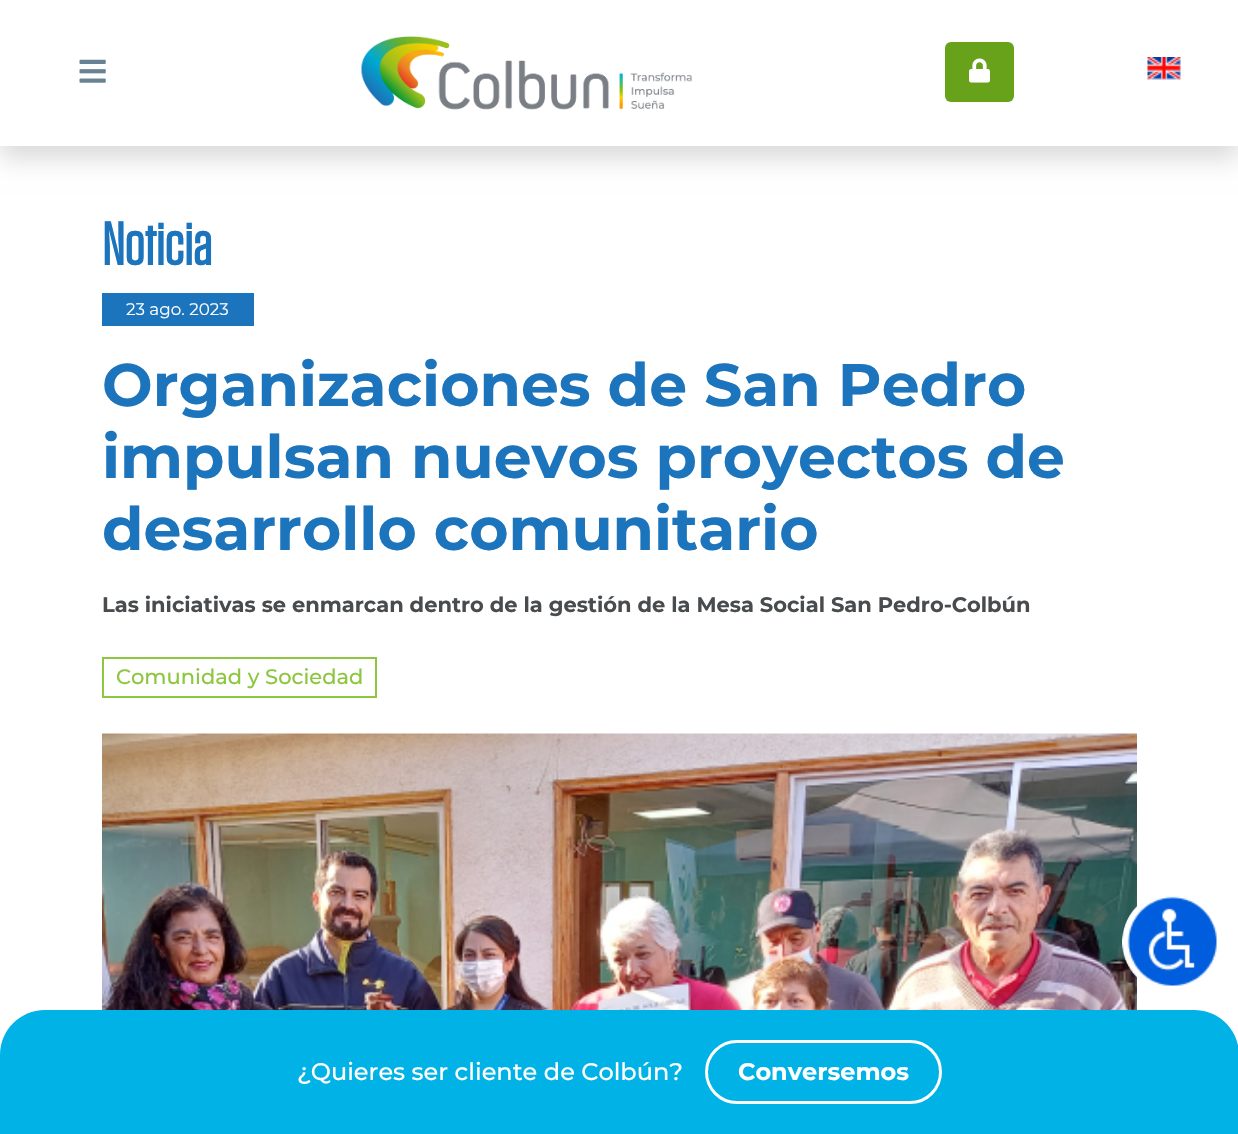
void draw(SkCanvas* canvas) {
  SkPaint paint;
  paint.setAntiAlias(true);
  auto face = [&](const char* family, int weight, float size, bool italic = false) {
    SkFontStyle style(weight, SkFontStyle::kNormal_Width,
      italic ? SkFontStyle::kItalic_Slant : SkFontStyle::kUpright_Slant);
    SkFont result(fontMgr->matchFamilyStyle(family, style), size);
    result.setSubpixel(true);
    return result;
  };
  auto paste = [&](const char* path, float x, float y, float w, float h) {
    auto image = SkImages::DeferredFromEncodedData(SkData::MakeFromFileName(path));
    canvas->drawImageRect(image, SkRect::MakeXYWH(x, y, w, h), SkSamplingOptions());
  };
  auto shape = [&](const char* data, bool evenOdd = false) {
    SkPath result = *SkParsePath::FromSVGString(data);
    if (evenOdd) result.setFillType(SkPathFillType::kEvenOdd);
    return result;
  };
  canvas->clear(0xffffffff);
  canvas->save();
  canvas->clipPath(shape("M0 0H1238V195H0ZM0 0H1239V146H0Z", true), true);
  paint.setColor(0x26000000);
  paint.setMaskFilter(SkMaskFilter::MakeBlur(kNormal_SkBlurStyle, 12));
  canvas->drawRect(SkRect::MakeXYWH(0, 12, 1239, 146), paint);
  paint.setMaskFilter(nullptr);
  canvas->restore();
  paste("img/1.png", 79, 59, 27, 24);
  paste("img/2.png", 361, 36, 331, 74);
  paint.setColor(0xff68a21a);
  canvas->drawRoundRect(SkRect::MakeXYWH(945, 42, 69, 60), 6, 6, paint);
  paste("img/3.png", 969, 58, 21, 25);
  paste("img/4.png", 1147, 57, 34, 23);
  paint.setColor(0xff1c75bc);
  canvas->drawRect(SkRect::MakeXYWH(102, 293, 152, 33), paint);
  paint.setStroke(true);
  paint.setStrokeWidth(2);
  paint.setColor(0xff8dc63f);
  canvas->drawRect(SkRect::MakeXYWH(103, 658, 273, 39), paint);
  paste("img/5.png", 102, 733, 1035, 277);
  paste("img/6.png", 1122, 896, 96, 91);
  paint.setStroke(false);
  paint.setColor(0xff00b2e6);
  canvas->drawPath(shape("M45 1010H1194C1219 1010 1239 1030 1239 1055V1134H0V1055C0 1030 20 1010 45 1010Z"), paint);
  paint.setStroke(true);
  paint.setStrokeWidth(3);
  paint.setColor(0xffffffff);
  canvas->drawRoundRect(SkRect::MakeXYWH(706.5f, 1041.5f, 234, 61), 30.5f, 30.5f, paint);
  auto f0 = face("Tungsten", 700, 60);
  paint.setStroke(false);
  paint.setColor(0xff1c75bc);
  canvas->drawString("Noticia", 102, 265, f0, paint);
  auto f1 = face("Montserrat", 400, 16.75f);
  paint.setColor(0xffffffff);
  canvas->drawString("23 ago. 2023", 126, 315, f1, paint);
  auto f2 = face("Montserrat", 700, 60);
  paint.setColor(0xff1c75bc);
  {
    const struct { const char* s; float x, y; } items[] = {
      {"Organizaciones de San Pedro", 102, 406},
      {"impulsan nuevos proyectos de", 102, 478},
      {"desarrollo comunitario", 102, 550},
    };
    for (auto [s, x, y] : items) {
      canvas->drawString(s, x, y, f2, paint);
    }
  }
  auto f3 = face("Montserrat", 700, 21);
  paint.setColor(0xff494c4e);
  canvas->drawString("Las iniciativas se enmarcan dentro de la gestión de la Mesa Social San Pedro-Colbún", 102, 612, f3, paint);
  auto f4 = face("Montserrat", 500, 21);
  paint.setColor(0xff8dc63f);
  canvas->drawString("Comunidad y Sociedad", 116, 684, f4, paint);
  auto f5 = face("Montserrat", 500, 24);
  paint.setColor(0xffffffff);
  canvas->drawString("¿Quieres ser cliente de Colbún?", 297, 1080, f5, paint);
  auto f6 = face("Montserrat", 700, 24);
  canvas->drawString("Conversemos", 738, 1080, f6, paint);
}
